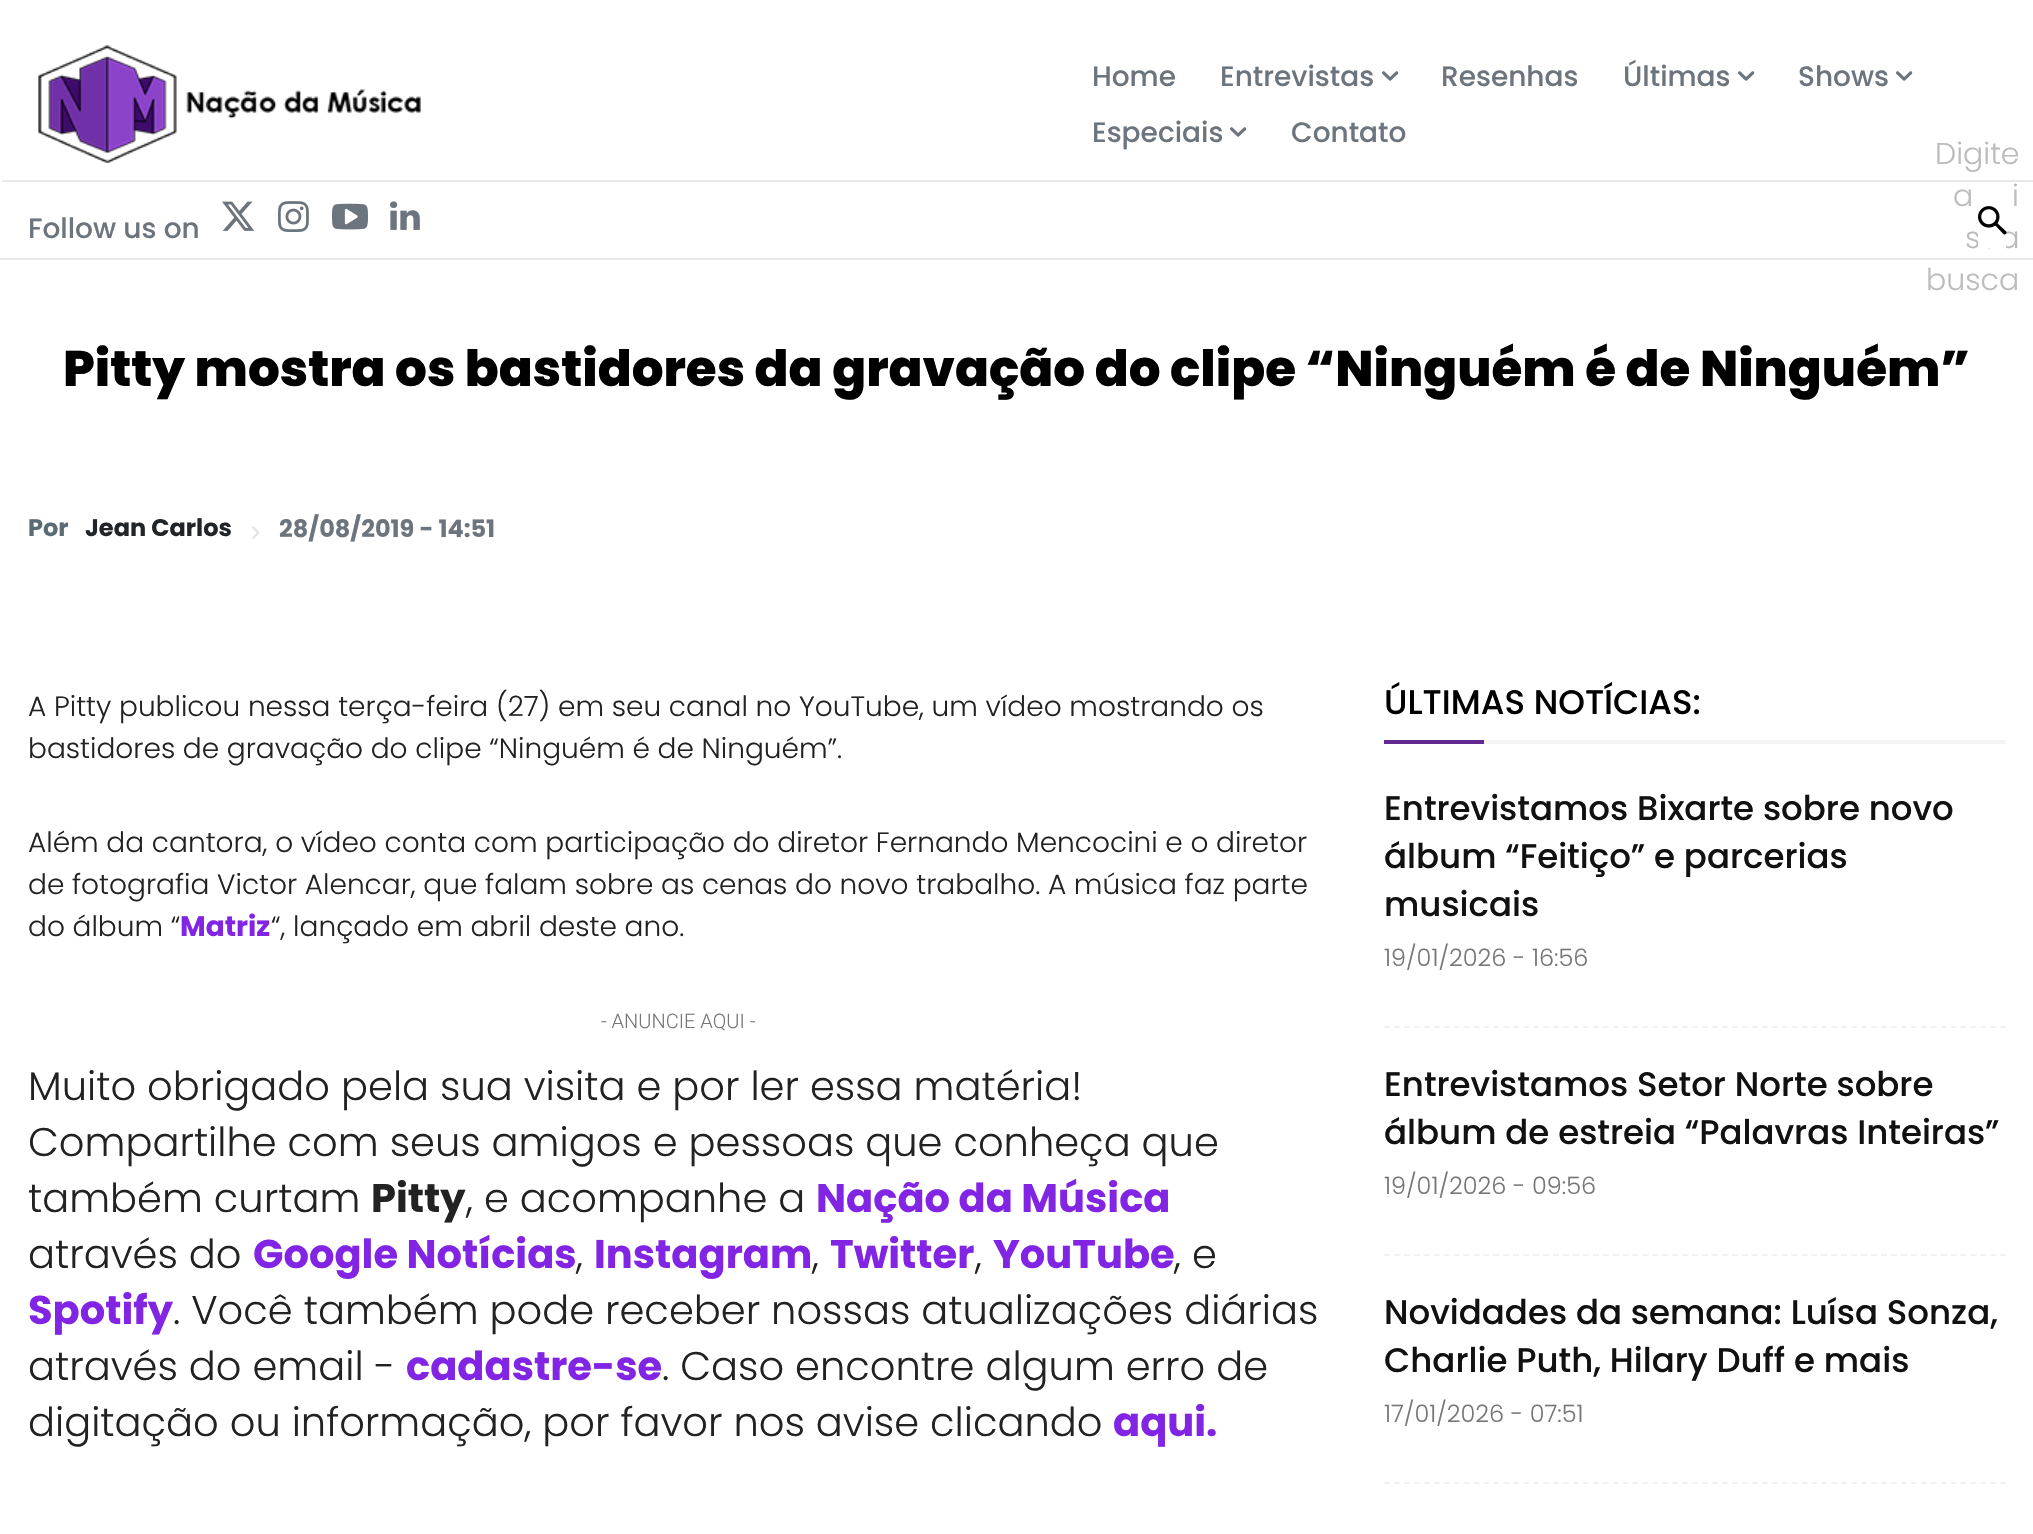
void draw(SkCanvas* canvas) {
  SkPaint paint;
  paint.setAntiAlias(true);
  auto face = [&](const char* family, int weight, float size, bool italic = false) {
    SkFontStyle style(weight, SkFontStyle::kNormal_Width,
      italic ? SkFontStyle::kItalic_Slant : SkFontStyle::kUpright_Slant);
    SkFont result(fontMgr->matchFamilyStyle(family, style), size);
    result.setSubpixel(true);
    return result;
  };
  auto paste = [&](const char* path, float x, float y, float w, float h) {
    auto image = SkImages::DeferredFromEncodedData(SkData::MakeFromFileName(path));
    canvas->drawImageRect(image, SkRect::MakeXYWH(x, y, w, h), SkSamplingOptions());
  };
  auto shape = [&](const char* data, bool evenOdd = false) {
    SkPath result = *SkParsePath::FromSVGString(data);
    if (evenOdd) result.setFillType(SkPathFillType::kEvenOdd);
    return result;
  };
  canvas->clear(0xffffffff);
  paint.setColor(0xffe8e8e8);
  canvas->drawRect(SkRect::MakeXYWH(0, 258, 2033, 2), paint);
  paste("img/1.png", 38, 45, 383, 118);
  paste("img/2.png", 1382, 71, 17, 10);
  paste("img/2.png", 1738, 71, 17, 10);
  paste("img/2.png", 1896, 71, 17, 10);
  paste("img/2.png", 1230, 127, 17, 10);
  canvas->drawRect(SkRect::MakeXYWH(2, 180, 2031, 2), paint);
  paste("img/4.png", 222, 201, 33, 30);
  paste("img/5.png", 278, 201, 31, 31);
  paste("img/6.png", 332, 203, 36, 27);
  paste("img/7.png", 390, 201, 30, 29);
  paste("img/8.png", 252, 526, 8, 13);
  paint.setColor(0xff622992);
  canvas->drawRect(SkRect::MakeXYWH(1384, 740, 100, 4), paint);
  paint.setColor(0xfff5f5f5);
  canvas->drawRect(SkRect::MakeXYWH(1484, 740, 522, 4), paint);
  paint.setStroke(true);
  paint.setStrokeWidth(2);
  paint.setColor(0xfff2f2f2);
  paint.setPathEffect(SkDashPathEffect::Make({{6, 3.94f}}, 0));
  canvas->drawPath(shape("M1384 1027H2006"), paint);
  paint.setPathEffect(nullptr);
  paint.setPathEffect(SkDashPathEffect::Make({{6, 3.94f}}, 0));
  canvas->drawPath(shape("M1384 1255H2006"), paint);
  paint.setPathEffect(nullptr);
  paint.setPathEffect(SkDashPathEffect::Make({{6, 3.94f}}, 0));
  canvas->drawPath(shape("M1384 1483H2006"), paint);
  paint.setPathEffect(nullptr);
  auto f0 = face("Poppins", 500, 28);
  paint.setStroke(false);
  paint.setColor(0xff6c757d);
  {
    const struct { const char* s; float x, y; } items[] = {
      {"Home", 1092, 86},
      {"Entrevistas", 1220, 86},
      {"Resenhas", 1441, 86},
      {"Últimas", 1623, 86},
      {"Shows", 1798, 86},
      {"Especiais", 1092, 142},
      {"Contato", 1291, 142},
    };
    for (auto [s, x, y] : items) {
      canvas->drawString(s, x, y, f0, paint);
    }
  }
  auto f1 = face("Poppins", 300, 30);
  paint.setColor(0xffbcbcbc);
  {
    const struct { const char* s; float x, y; } items[] = {
      {"Digite", 1935, 164},
      {"a", 1953, 206},
      {"i", 2012, 206},
      {"sua", 1965, 248},
      {"busca", 1926, 290},
    };
    for (auto [s, x, y] : items) {
      canvas->drawString(s, x, y, f1, paint);
    }
  }
  paint.setColor(0xffffffff);
  canvas->drawRect(SkRect::MakeXYWH(1978, 231, 28, 17), paint);
  paste("img/3.png", 1978, 206, 29, 29);
  paint.setColor(0xff6c757d);
  canvas->drawString("Follow us on", 28, 238, f0, paint);
  auto f2 = face("Poppins", 800, 50);
  paint.setColor(0xff000000);
  canvas->drawString("Pitty mostra os bastidores da gravação do clipe “Ninguém é de Ninguém”", 63, 386, f2, paint);
  auto f3 = face("Poppins", 700, 24);
  paint.setColor(0xff5b6b75);
  canvas->drawString("Por", 28, 536, f3, paint);
  paint.setColor(0xff212529);
  canvas->drawString("Jean Carlos", 85, 536, f3, paint);
  paint.setColor(0xff6c757d);
  canvas->drawString("28/08/2019 - 14:51", 279, 537, f3, paint);
  auto f4 = face("Poppins", 300, 28);
  paint.setColor(0xff222222);
  {
    const struct { const char* s; float x, y; } items[] = {
      {"A Pitty publicou nessa terça-feira (27) em seu canal no YouTube, um vídeo mostrando os", 28, 716},
      {"bastidores de gravação do clipe “Ninguém é de Ninguém”.", 28, 758},
      {"Além da cantora, o vídeo conta com participação do diretor Fernando Mencocini e o diretor", 28, 852},
      {"de fotografia Victor Alencar, que falam sobre as cenas do novo trabalho. A música faz parte", 28, 894},
      {"do álbum “", 28, 936},
    };
    for (auto [s, x, y] : items) {
      canvas->drawString(s, x, y, f4, paint);
    }
  }
  auto f5 = face("Poppins", 700, 28);
  paint.setColor(0xff8224e3);
  canvas->drawString("Matriz", 180, 936, f5, paint);
  paint.setColor(0xff222222);
  canvas->drawString("“, lançado em abril deste ano.", 271, 936, f4, paint);
  auto f6 = face("Roboto", 300, 20);
  paint.setColor(0xff767676);
  canvas->drawString("- ANUNCIE AQUI -", 601, 1028, f6, paint);
  auto f7 = face("Poppins", 300, 40);
  paint.setColor(0xff222222);
  {
    const struct { const char* s; float x, y; } items[] = {
      {"Muito obrigado pela sua visita e por ler essa matéria!", 28, 1100},
      {"Compartilhe com seus amigos e pessoas que conheça que", 28, 1156},
      {"também curtam", 28, 1212},
    };
    for (auto [s, x, y] : items) {
      canvas->drawString(s, x, y, f7, paint);
    }
  }
  auto f8 = face("Poppins", 700, 40);
  canvas->drawString("Pitty", 371, 1212, f8, paint);
  canvas->drawString(", e acompanhe a", 466, 1212, f7, paint);
  paint.setColor(0xff8224e3);
  canvas->drawString("Nação da Música", 816, 1212, f8, paint);
  paint.setColor(0xff222222);
  canvas->drawString("através do", 28, 1268, f7, paint);
  paint.setColor(0xff8224e3);
  canvas->drawString("Google Notícias", 253, 1268, f8, paint);
  paint.setColor(0xff222222);
  canvas->drawString(",", 576, 1268, f7, paint);
  paint.setColor(0xff8224e3);
  canvas->drawString("Instagram", 594, 1268, f8, paint);
  paint.setColor(0xff222222);
  canvas->drawString(",", 812, 1268, f7, paint);
  paint.setColor(0xff8224e3);
  canvas->drawString("Twitter", 830, 1268, f8, paint);
  paint.setColor(0xff222222);
  canvas->drawString(",", 975, 1268, f7, paint);
  paint.setColor(0xff8224e3);
  canvas->drawString("YouTube", 993, 1268, f8, paint);
  paint.setColor(0xff222222);
  canvas->drawString(", e", 1174, 1268, f7, paint);
  paint.setColor(0xff8224e3);
  canvas->drawString("Spotify", 28, 1324, f8, paint);
  paint.setColor(0xff222222);
  canvas->drawString(". Você também pode receber nossas atualizações diárias", 173, 1324, f7, paint);
  canvas->drawString("através do email -", 28, 1380, f7, paint);
  paint.setColor(0xff8224e3);
  canvas->drawString("cadastre-se", 406, 1380, f8, paint);
  paint.setColor(0xff222222);
  canvas->drawString(". Caso encontre algum erro de", 662, 1380, f7, paint);
  canvas->drawString("digitação ou informação, por favor nos avise clicando", 28, 1436, f7, paint);
  paint.setColor(0xff8224e3);
  canvas->drawString("aqui.", 1113, 1436, f8, paint);
  auto f9 = face("Poppins", 500, 34);
  paint.setColor(0xff000000);
  canvas->drawString("ÚLTIMAS NOTÍCIAS:", 1384, 714, f9, paint);
  paint.setColor(0xff111111);
  {
    const struct { const char* s; float x, y; } items[] = {
      {"Entrevistamos Bixarte sobre novo", 1384, 820},
      {"álbum “Feitiço” e parcerias", 1384, 868},
      {"musicais", 1384, 916},
    };
    for (auto [s, x, y] : items) {
      canvas->drawString(s, x, y, f9, paint);
    }
  }
  auto f10 = face("Poppins", 300, 24);
  paint.setColor(0xff767676);
  canvas->drawString("19/01/2026 - 16:56", 1384, 966, f10, paint);
  paint.setColor(0xff111111);
  canvas->drawString("Entrevistamos Setor Norte sobre", 1384, 1096, f9, paint);
  canvas->drawString("álbum de estreia “Palavras Inteiras”", 1384, 1144, f9, paint);
  paint.setColor(0xff767676);
  canvas->drawString("19/01/2026 - 09:56", 1384, 1194, f10, paint);
  paint.setColor(0xff111111);
  canvas->drawString("Novidades da semana: Luísa Sonza,", 1384, 1324, f9, paint);
  canvas->drawString("Charlie Puth, Hilary Duff e mais", 1384, 1372, f9, paint);
  paint.setColor(0xff767676);
  canvas->drawString("17/01/2026 - 07:51", 1384, 1422, f10, paint);
}
